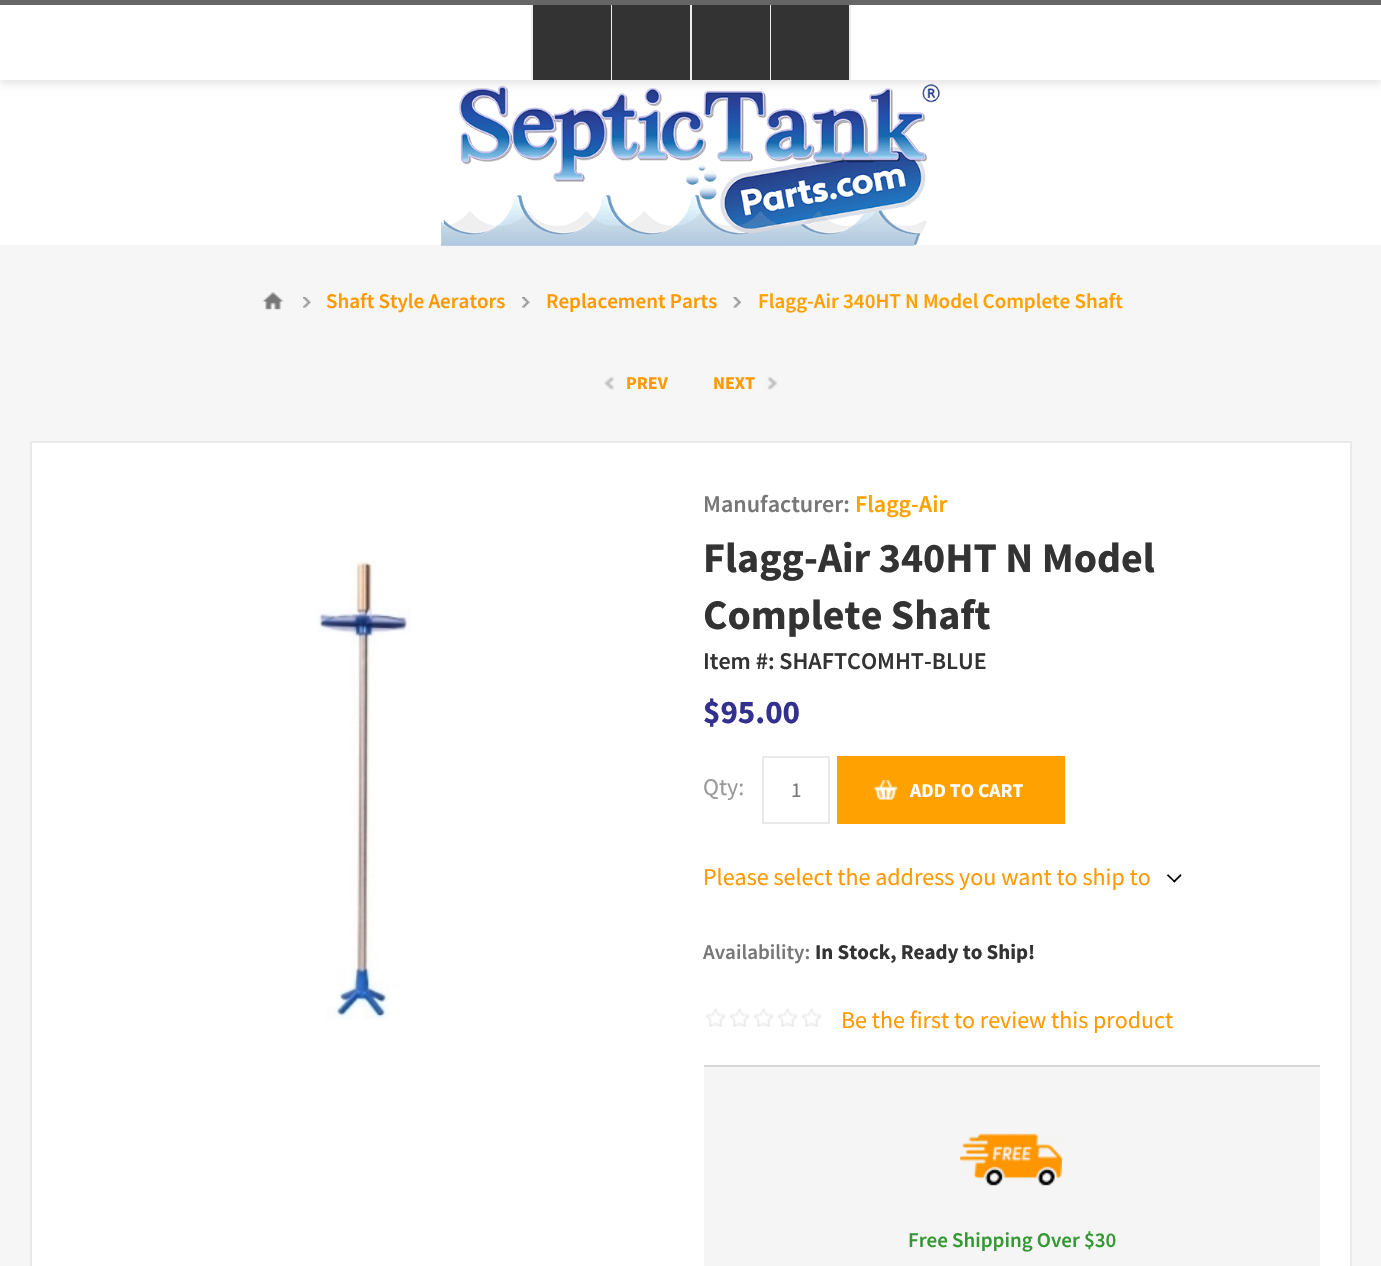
void draw(SkCanvas* canvas) {
  SkPaint paint;
  paint.setAntiAlias(true);
  auto face = [&](const char* family, int weight, float size, bool italic = false) {
    SkFontStyle style(weight, SkFontStyle::kNormal_Width,
      italic ? SkFontStyle::kItalic_Slant : SkFontStyle::kUpright_Slant);
    SkFont result(fontMgr->matchFamilyStyle(family, style), size);
    result.setSubpixel(true);
    return result;
  };
  auto paste = [&](const char* path, float x, float y, float w, float h) {
    auto image = SkImages::DeferredFromEncodedData(SkData::MakeFromFileName(path));
    canvas->drawImageRect(image, SkRect::MakeXYWH(x, y, w, h), SkSamplingOptions());
  };
  auto shape = [&](const char* data, bool evenOdd = false) {
    SkPath result = *SkParsePath::FromSVGString(data);
    if (evenOdd) result.setFillType(SkPathFillType::kEvenOdd);
    return result;
  };
  canvas->clear(0xfff6f6f6);
  paint.setColor(0xffffffff);
  canvas->drawRect(SkRect::MakeXYWH(0, 80, 1381, 165), paint);
  paste("img/1.png", 441, 84, 499, 162);
  paint.setColor(0x1a000000);
  paint.setMaskFilter(SkMaskFilter::MakeBlur(kNormal_SkBlurStyle, 4));
  canvas->drawRect(SkRect::MakeXYWH(0, 5, 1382, 79), paint);
  paint.setMaskFilter(nullptr);
  {
    const struct { float x, y, w, h; SkColor color; } items[] = {
      {0, 5, 1381, 75, 0xffffffff},
      {0, 0, 1381, 5, 0xff666666},
      {533, 5, 78, 75, 0xff333333},
      {611, 5, 1, 75, 0xffeeeeee},
      {531, 5, 2, 75, 0xffeeeeee},
      {612, 5, 78, 75, 0xff333333},
      {690, 5, 2, 75, 0xffeeeeee},
      {692, 5, 78, 75, 0xff333333},
      {770, 5, 1, 75, 0xffeeeeee},
      {771, 5, 78, 75, 0xff333333},
      {849, 5, 2, 75, 0xffeeeeee},
    };
    for (auto [x, y, w, h, color] : items) {
      paint.setColor(color);
      canvas->drawRect(SkRect::MakeXYWH(x, y, w, h), paint);
    }
  }
  paste("img/2.png", 262, 292, 22, 18);
  paste("img/3.png", 303, 297, 8, 11);
  paste("img/3.png", 522, 297, 8, 11);
  paste("img/4.png", 733, 297, 8, 11);
  paste("img/5.png", 604, 376, 10, 14);
  paste("img/6.png", 767, 376, 11, 14);
  paint.setColor(0xffffffff);
  canvas->drawRect(SkRect::MakeXYWH(31, 442, 1320, 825), paint);
  paint.setStroke(true);
  paint.setStrokeWidth(2);
  paint.setColor(0xffe9e9e9);
  canvas->drawRect(SkRect::MakeXYWH(31, 442, 1320, 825), paint);
  paste("img/7.png", 317, 560, 94, 460);
  canvas->drawRect(SkRect::MakeXYWH(763, 757, 66, 66), paint);
  paint.setStroke(false);
  paint.setColor(0xffffa101);
  canvas->drawRect(SkRect::MakeXYWH(837, 756, 228, 68), paint);
  paste("img/8.png", 874, 780, 24, 20);
  paint.setColor(0xff000000);
  canvas->drawPath(shape("M1180.5 874L1181.5 875.5L1174.5 882.5L1173 881.5Z"), paint);
  canvas->drawPath(shape("M1168 874L1175.5 881.5L1174.5 882.5L1167 875.5Z"), paint);
  paste("img/9.png", 705, 1008, 117, 19);
  paint.setColor(0xfff5f5f5);
  canvas->drawRect(SkRect::MakeXYWH(704, 1067, 616, 199), paint);
  paint.setColor(0xffd8d8d8);
  canvas->drawRect(SkRect::MakeXYWH(704, 1065, 616, 2), paint);
  paste("img/10.png", 960, 1133, 102, 53);
  auto f0 = face("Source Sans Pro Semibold", 600, 21);
  paint.setColor(0xffff9900);
  canvas->drawString("Shaft Style Aerators", 326, 308, f0, paint);
  canvas->drawString("Replacement Parts", 546, 308, f0, paint);
  paint.setColor(0xffffa101);
  canvas->drawString("Flagg-Air 340HT N Model Complete Shaft", 758, 308, f0, paint);
  auto f1 = face("Source Sans Pro", 700, 18);
  paint.setColor(0xffff9900);
  canvas->drawString("PREV", 626, 389, f1, paint);
  canvas->drawString("NEXT", 713, 389, f1, paint);
  auto f2 = face("Source Sans Pro Semibold", 600, 24);
  paint.setColor(0xff777777);
  canvas->drawString("Manufacturer:", 703, 512, f2, paint);
  paint.setColor(0xffffa101);
  canvas->drawString("Flagg-Air", 855, 512, f2, paint);
  auto f3 = face("Source Sans Pro", 700, 42);
  paint.setColor(0xff333333);
  canvas->drawString("Flagg-Air 340HT N Model", 703, 572, f3, paint);
  canvas->drawString("Complete Shaft", 703, 629, f3, paint);
  canvas->drawString("Item #: SHAFTCOMHT-BLUE", 703, 669, f2, paint);
  auto f4 = face("Source Sans Pro", 700, 33);
  paint.setColor(0xff33308f);
  canvas->drawString("$95.00", 703, 723, f4, paint);
  auto f5 = face("Source Sans Pro", 400, 24);
  paint.setColor(0xff999999);
  canvas->drawString("Qty:", 703, 795, f5, paint);
  auto f6 = face("Source Sans Pro", 400, 21);
  paint.setColor(0xff777777);
  canvas->drawString("1", 791, 797, f6, paint);
  auto f7 = face("Source Sans Pro", 700, 19.5f);
  paint.setColor(0xffffffff);
  canvas->drawString("ADD TO CART", 910, 797, f7, paint);
  paint.setColor(0xffff9900);
  canvas->drawString("Please select the address you want to ship to", 703, 885, f5, paint);
  paint.setColor(0xff777777);
  canvas->drawString("Availability:", 703, 959, f0, paint);
  auto f8 = face("Source Sans Pro", 700, 21);
  paint.setColor(0xff333333);
  canvas->drawString("In Stock, Ready to Ship!", 815, 959, f8, paint);
  paint.setColor(0xffff9900);
  canvas->drawString("Be the first to review this product", 841, 1028, f5, paint);
  paint.setColor(0xff339933);
  canvas->drawString("Free Shipping Over $30", 908, 1247, f0, paint);
}
